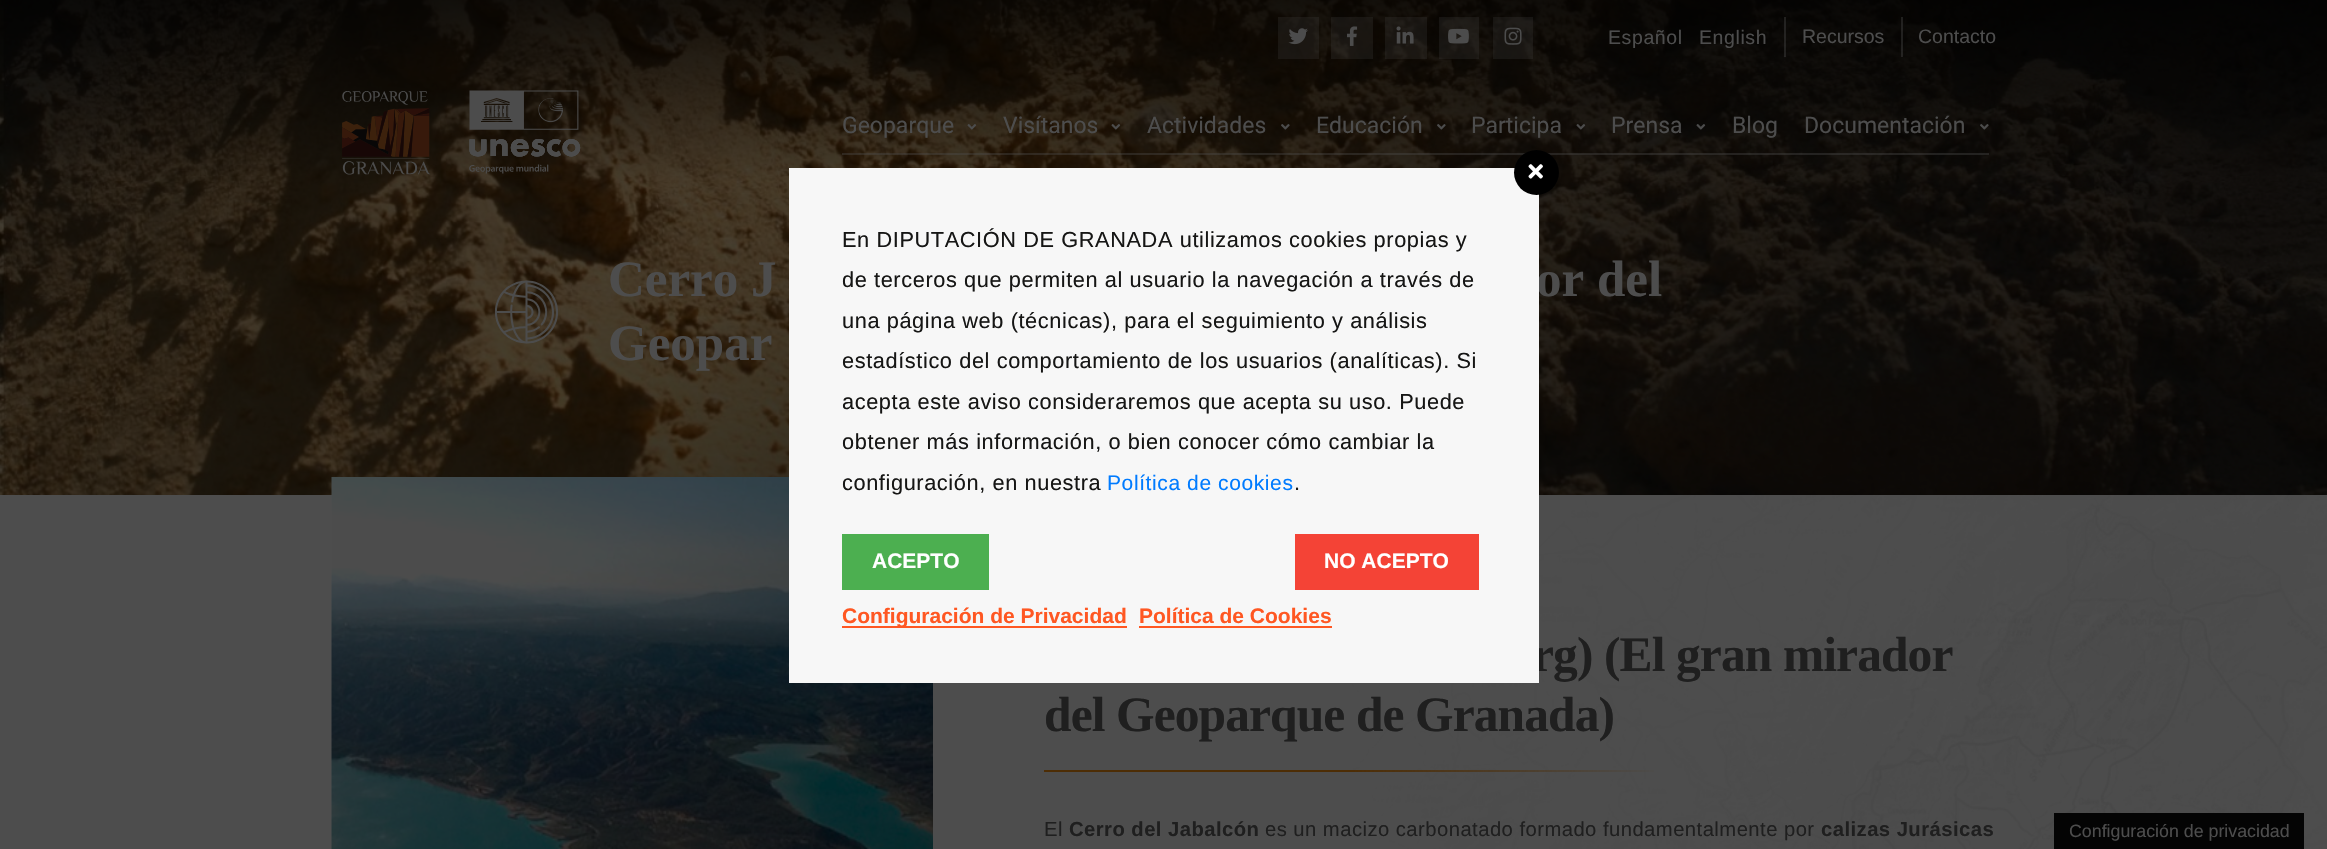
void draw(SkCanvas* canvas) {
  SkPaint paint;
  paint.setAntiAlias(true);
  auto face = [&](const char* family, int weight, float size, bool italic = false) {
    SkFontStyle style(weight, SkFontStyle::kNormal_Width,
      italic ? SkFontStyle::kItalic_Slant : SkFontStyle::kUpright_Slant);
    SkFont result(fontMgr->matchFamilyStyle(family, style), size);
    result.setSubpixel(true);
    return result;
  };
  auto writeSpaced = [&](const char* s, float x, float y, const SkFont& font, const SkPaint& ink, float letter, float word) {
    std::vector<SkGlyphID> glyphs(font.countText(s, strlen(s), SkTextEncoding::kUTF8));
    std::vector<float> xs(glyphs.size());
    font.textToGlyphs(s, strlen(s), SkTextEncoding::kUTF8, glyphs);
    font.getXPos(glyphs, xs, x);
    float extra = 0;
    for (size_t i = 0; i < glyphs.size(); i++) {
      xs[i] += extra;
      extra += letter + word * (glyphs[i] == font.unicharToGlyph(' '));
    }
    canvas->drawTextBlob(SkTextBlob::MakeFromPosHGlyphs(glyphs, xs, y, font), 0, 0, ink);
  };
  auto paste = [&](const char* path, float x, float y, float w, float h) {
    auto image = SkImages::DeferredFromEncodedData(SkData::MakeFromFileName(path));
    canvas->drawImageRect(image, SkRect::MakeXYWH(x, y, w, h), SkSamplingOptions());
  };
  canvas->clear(0xff4d4d4d);
  paste("img/1.png", 0, 0, 2327, 495);
  paint.setColor(0x334d4d4d);
  canvas->drawRect(SkRect::MakeXYWH(1278, 17, 41, 42), paint);
  paste("img/2.png", 1288, 28, 20, 17);
  canvas->drawRect(SkRect::MakeXYWH(1331, 17, 42, 42), paint);
  paste("img/3.png", 1347, 26, 11, 20);
  canvas->drawRect(SkRect::MakeXYWH(1385, 17, 42, 42), paint);
  paste("img/4.png", 1396, 26, 18, 18);
  canvas->drawRect(SkRect::MakeXYWH(1439, 17, 40, 42), paint);
  paste("img/5.png", 1448, 28, 21, 16);
  canvas->drawRect(SkRect::MakeXYWH(1493, 17, 40, 42), paint);
  paste("img/6.png", 1504, 27, 18, 18);
  paint.setColor(0x5e4d4d4d);
  canvas->drawRect(SkRect::MakeXYWH(1784, 17, 2, 40), paint);
  canvas->drawRect(SkRect::MakeXYWH(1901, 17, 2, 40), paint);
  paste("img/7.png", 342, 90, 239, 85);
  canvas->drawRect(SkRect::MakeXYWH(842, 153, 148, 2), paint);
  paste("img/8.png", 967, 124, 10, 6);
  canvas->drawRect(SkRect::MakeXYWH(990, 153, 144, 2), paint);
  paste("img/9.png", 1111, 124, 10, 6);
  canvas->drawRect(SkRect::MakeXYWH(1134, 153, 168, 2), paint);
  paste("img/10.png", 1281, 124, 9, 6);
  canvas->drawRect(SkRect::MakeXYWH(1302, 153, 156, 2), paint);
  paste("img/11.png", 1437, 124, 9, 6);
  canvas->drawRect(SkRect::MakeXYWH(1458, 153, 140, 2), paint);
  paste("img/12.png", 1576, 124, 10, 6);
  canvas->drawRect(SkRect::MakeXYWH(1598, 153, 121, 2), paint);
  paste("img/13.png", 1696, 124, 10, 6);
  canvas->drawRect(SkRect::MakeXYWH(1719, 153, 72, 2), paint);
  canvas->drawRect(SkRect::MakeXYWH(1791, 153, 198, 2), paint);
  paste("img/14.png", 1980, 124, 9, 6);
  paste("img/15.png", 494, 280, 65, 64);
  paste("img/16.png", 1349, 495, 978, 354);
  paste("img/17.png", 331, 477, 602, 372);
  {
    const SkColor colors[] = {0xff4d2d05, 0x004d2d05};
    const float stops[] = {0.5f, 1};
    const SkPoint ends[] = {{1044, 770}, {1664, 770}};
    paint.setShader(SkGradientShader::MakeLinear(ends, colors, stops, 2, SkTileMode::kClamp));
    paint.setAlpha(255);
  }
  canvas->drawRect(SkRect::MakeXYWH(1044, 770, 610, 2), paint);
  paint.setShader(nullptr);
  paint.setColor(0xff040404);
  canvas->drawRect(SkRect::MakeXYWH(2054, 813, 250, 36), paint);
  auto f0 = face("Liberation Sans", 400, 19.5f);
  paint.setColor(0xff4d4d4d);
  writeSpaced("Español", 1608, 44, f0, paint, 0.6f, 0);
  writeSpaced("English", 1699, 44, f0, paint, 0.6f, 0);
  canvas->drawString("Recursos", 1802, 43, f0, paint);
  canvas->drawString("Contacto", 1918, 43, f0, paint);
  auto f1 = face("Roboto", 400, 23);
  {
    const struct { const char* s; float x, y; } items[] = {
      {"Geoparque", 842, 133},
      {"Visítanos", 1003, 133},
      {"Actividades", 1147, 133},
      {"Educación", 1316, 133},
      {"Participa", 1471, 133},
      {"Prensa", 1611, 133},
      {"Blog", 1732, 133},
      {"Documentación", 1804, 133},
    };
    for (auto [s, x, y] : items) {
      canvas->drawString(s, x, y, f1, paint);
    }
  }
  auto f2 = face("Liberation Serif", 700, 51);
  {
    const struct { const char* s; float x, y; } items[] = {
      {"Cerro J", 608, 296},
      {"or del", 1536, 296},
      {"Geopar", 608, 360},
    };
    for (auto [s, x, y] : items) {
      canvas->drawString(s, x, y, f2, paint);
    }
  }
  auto f3 = face("Liberation Serif", 700, 49.5f);
  paint.setColor(0xff1f1f1f);
  writeSpaced("rg) (El gran mirador", 1532, 671, f3, paint, -0.9f, 0);
  writeSpaced("del Geoparque de Granada)", 1044, 731, f3, paint, -0.9f, 0);
  auto f4 = face("Liberation Sans", 400, 20.25f);
  writeSpaced("El", 1044, 836, f4, paint, 0.45f, 0);
  auto f5 = face("Liberation Sans", 700, 20.25f);
  writeSpaced("Cerro del Jabalcón", 1069, 836, f5, paint, 0.45f, 0);
  writeSpaced("es un macizo carbonatado formado fundamentalmente por", 1265, 836, f4, paint, 0.45f, 0);
  writeSpaced("calizas Jurásicas", 1821, 836, f5, paint, 0.45f, 0);
  paint.setColor(0xfff7f7f7);
  canvas->drawRect(SkRect::MakeXYWH(789, 168, 750, 515), paint);
  paint.setColor(0xff000000);
  canvas->drawCircle(1536.5f, 172.5f, 22.5f, paint);
  paste("img/18.png", 1528, 164, 15, 15);
  auto f6 = face("Liberation Sans", 400, 21.75f);
  paint.setColor(0xff161615);
  {
    const struct { const char* s; float x, y; } items[] = {
      {"En DIPUTACIÓN DE GRANADA utilizamos cookies propias y", 842, 247},
      {"de terceros que permiten al usuario la navegación a través de", 842, 287},
      {"una página web (técnicas), para el seguimiento y análisis", 842, 328},
      {"estadístico del comportamiento de los usuarios (analíticas). Si", 842, 368},
      {"acepta este aviso consideraremos que acepta su uso. Puede", 842, 409},
      {"obtener más información, o bien conocer cómo cambiar la", 842, 449},
      {"configuración, en nuestra", 842, 490},
    };
    for (auto [s, x, y] : items) {
      writeSpaced(s, x, y, f6, paint, 0.6f, 0);
    }
  }
  auto f7 = face("Liberation Sans", 400, 21);
  paint.setColor(0xff007bff);
  writeSpaced("Política de cookies", 1107, 490, f7, paint, 0.6f, 0);
  paint.setColor(0xff161615);
  writeSpaced(".", 1294, 490, f6, paint, 0.6f, 0);
  paint.setColor(0xff4caf50);
  canvas->drawRect(SkRect::MakeXYWH(842, 534, 147, 56), paint);
  auto f8 = face("Liberation Sans", 700, 21);
  paint.setColor(0xffffffff);
  canvas->drawString("ACEPTO", 872, 568, f8, paint);
  paint.setColor(0xfff44336);
  canvas->drawRect(SkRect::MakeXYWH(1295, 534, 184, 56), paint);
  paint.setColor(0xffffffff);
  canvas->drawString("NO ACEPTO", 1324, 568, f8, paint);
  paint.setColor(0xffff5722);
  canvas->drawRect(SkRect::MakeXYWH(842, 626, 285, 2), paint);
  canvas->drawString("Configuración de Privacidad", 842, 623, f8, paint);
  canvas->drawString("Política de Cookies", 1139, 623, f8, paint);
  canvas->drawRect(SkRect::MakeXYWH(1139, 626, 193, 2), paint);
  auto f9 = face("Liberation Sans", 400, 17.8f);
  paint.setColor(0xff4d4d4d);
  canvas->drawString("Configuración de privacidad", 2069, 837, f9, paint);
}
